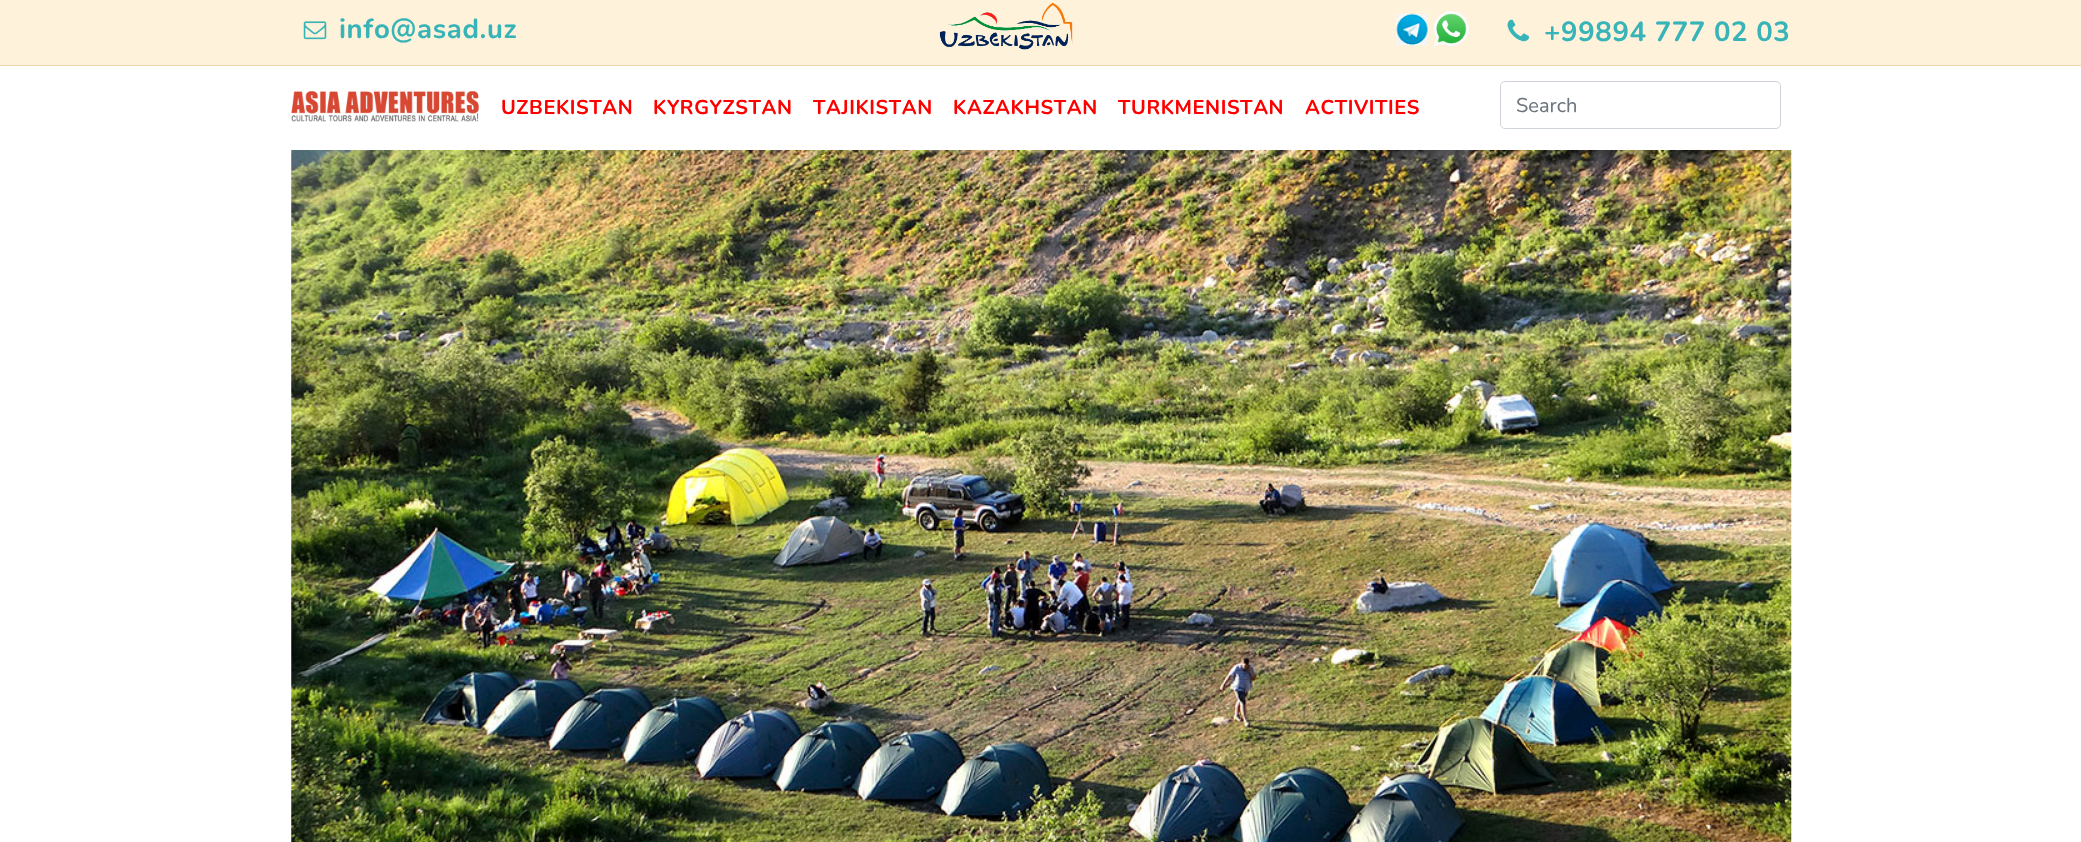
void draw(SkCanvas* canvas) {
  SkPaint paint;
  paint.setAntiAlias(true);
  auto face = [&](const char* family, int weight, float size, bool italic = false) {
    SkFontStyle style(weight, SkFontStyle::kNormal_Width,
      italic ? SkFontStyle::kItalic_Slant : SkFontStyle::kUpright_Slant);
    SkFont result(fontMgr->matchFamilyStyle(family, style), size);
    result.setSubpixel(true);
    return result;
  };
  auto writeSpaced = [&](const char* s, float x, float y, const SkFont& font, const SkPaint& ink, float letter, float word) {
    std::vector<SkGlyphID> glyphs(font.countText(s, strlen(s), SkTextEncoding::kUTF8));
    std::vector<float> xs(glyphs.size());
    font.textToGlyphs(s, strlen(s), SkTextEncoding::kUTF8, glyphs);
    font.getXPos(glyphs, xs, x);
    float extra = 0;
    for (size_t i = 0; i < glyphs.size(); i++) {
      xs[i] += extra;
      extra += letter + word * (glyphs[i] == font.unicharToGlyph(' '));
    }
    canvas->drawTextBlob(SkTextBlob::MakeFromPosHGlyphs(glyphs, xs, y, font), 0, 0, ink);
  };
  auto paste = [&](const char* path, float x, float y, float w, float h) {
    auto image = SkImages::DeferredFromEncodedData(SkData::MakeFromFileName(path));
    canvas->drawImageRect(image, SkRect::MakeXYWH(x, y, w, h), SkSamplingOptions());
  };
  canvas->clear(0xffffffff);
  paint.setColor(0xfffff2da);
  canvas->drawRect(SkRect::MakeXYWH(0, 0, 2081, 65), paint);
  paint.setColor(0xfff1d6ae);
  canvas->drawRect(SkRect::MakeXYWH(0, 65, 2081, 1), paint);
  paste("img/1.png", 303, 21, 24, 19);
  paste("img/2.png", 939, 2, 134, 48);
  paste("img/3.png", 1396, 13, 32, 32);
  paste("img/4.png", 1433, 11, 36, 36);
  paste("img/5.png", 1507, 19, 23, 23);
  paste("img/6.png", 291, 91, 188, 31);
  paint.setStroke(true);
  paint.setStrokeWidth(1);
  paint.setColor(0xffced4da);
  canvas->drawRoundRect(SkRect::MakeXYWH(1500.5f, 81.5f, 280, 47), 4.5f, 4.5f, paint);
  paste("img/7.png", 291, 150, 1501, 692);
  auto f0 = face("Nunito", 700, 27.5f);
  paint.setStroke(false);
  paint.setColor(0xff37b4b8);
  writeSpaced("info@asad.uz", 339, 38, f0, paint, 0.6f, 0);
  writeSpaced("+99894 777 02 03", 1544, 41, f0, paint, 0.6f, 0);
  auto f1 = face("Nunito", 700, 20);
  paint.setColor(0xffff0000);
  {
    const struct { const char* s; float x, y; } items[] = {
      {"UZBEKISTAN", 501, 114},
      {"KYRGYZSTAN", 653, 114},
      {"TAJIKISTAN", 813, 114},
      {"KAZAKHSTAN", 953, 114},
      {"TURKMENISTAN", 1118, 114},
      {"ACTIVITIES", 1305, 114},
    };
    for (auto [s, x, y] : items) {
      writeSpaced(s, x, y, f1, paint, 0.6f, 0);
    }
  }
  auto f2 = face("Nunito", 400, 20);
  paint.setColor(0xff6c757d);
  canvas->drawString("Search", 1516, 112, f2, paint);
}
